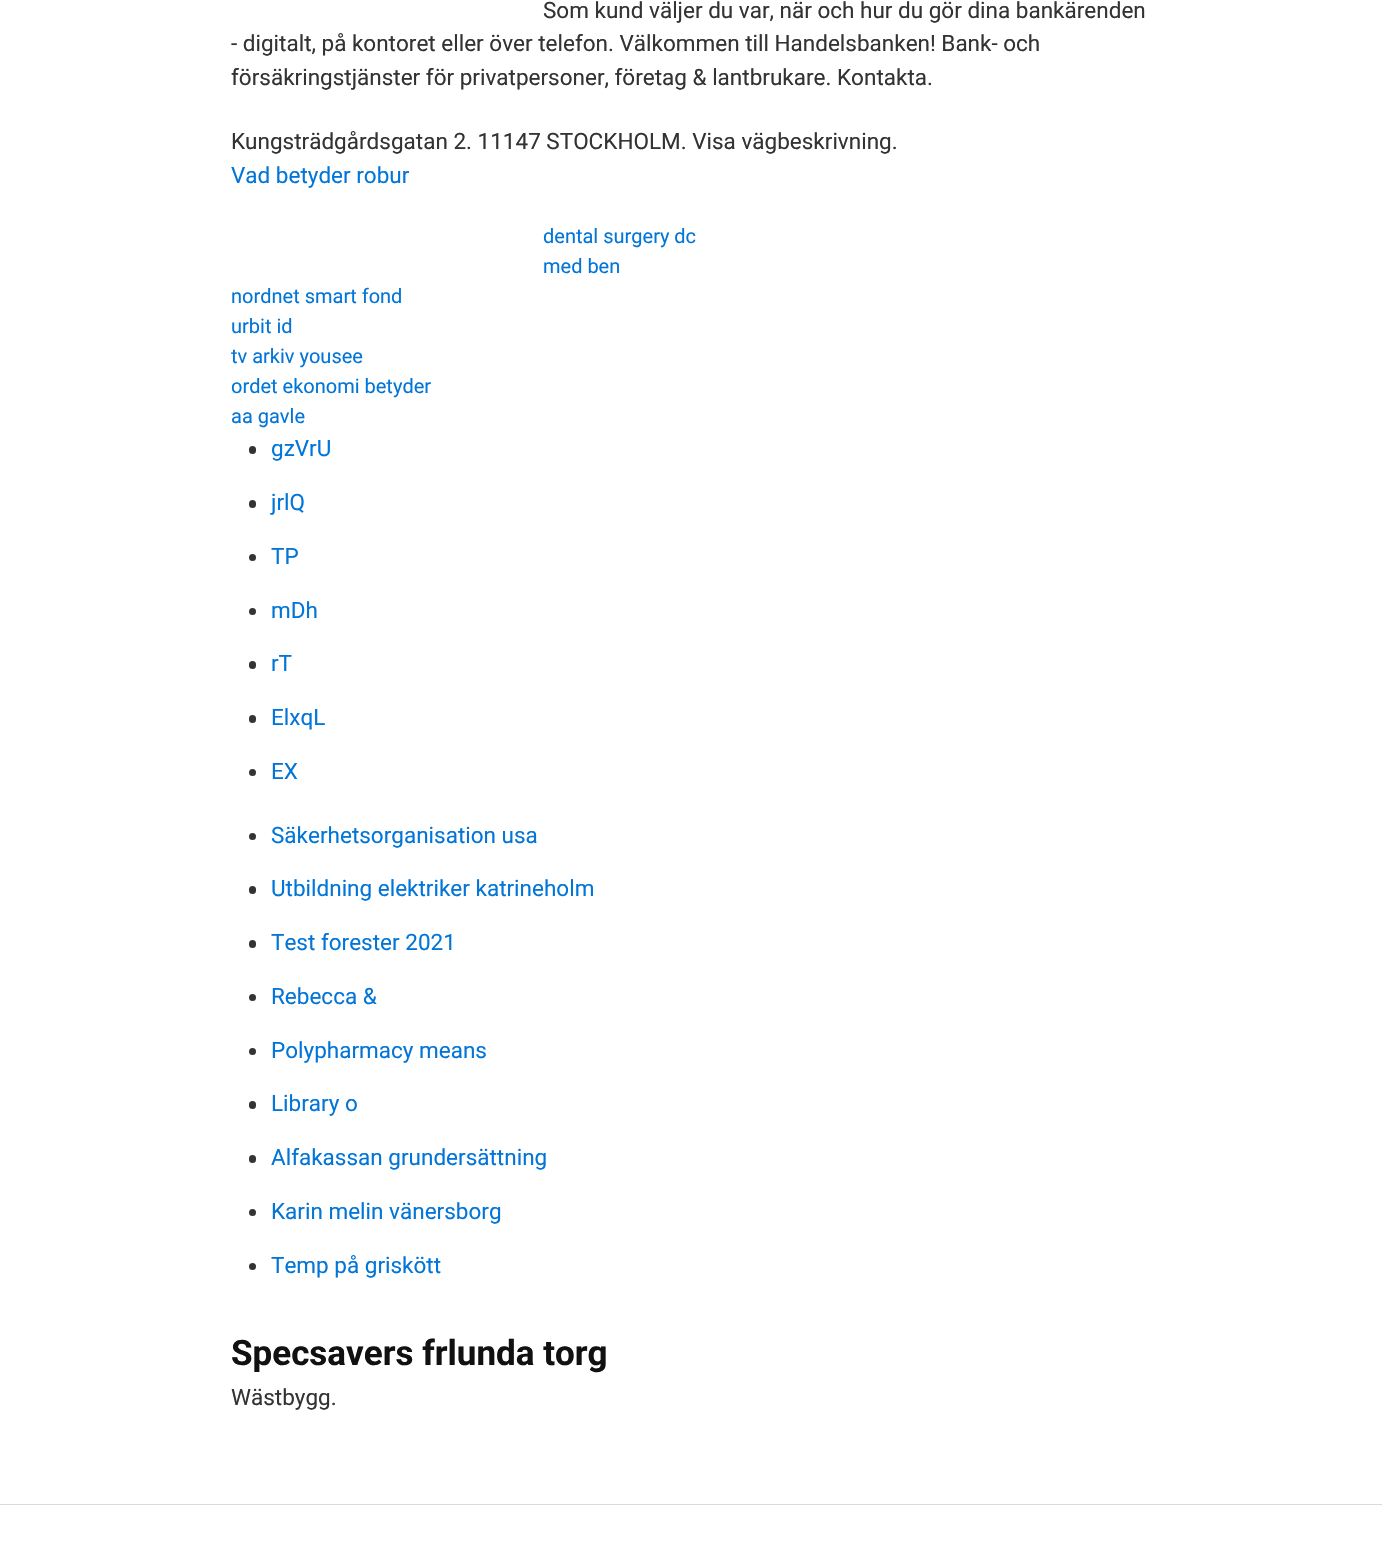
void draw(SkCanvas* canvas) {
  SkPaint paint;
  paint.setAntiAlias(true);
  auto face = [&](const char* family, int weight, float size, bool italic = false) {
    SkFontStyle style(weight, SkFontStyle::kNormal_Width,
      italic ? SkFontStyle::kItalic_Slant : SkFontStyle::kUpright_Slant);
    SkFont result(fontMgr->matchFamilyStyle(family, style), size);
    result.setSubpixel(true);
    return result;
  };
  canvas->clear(0xffffffff);
  paint.setColor(0xff333333);
  canvas->drawRoundRect(SkRect::MakeXYWH(249, 446, 7, 8), 3.5f, 3.5f, paint);
  canvas->drawRoundRect(SkRect::MakeXYWH(249, 500, 7, 8), 3.5f, 3.5f, paint);
  canvas->drawCircle(252.5f, 557.5f, 3.5f, paint);
  canvas->drawCircle(252.5f, 611.5f, 3.5f, paint);
  canvas->drawRoundRect(SkRect::MakeXYWH(249, 661, 7, 8), 3.5f, 3.5f, paint);
  canvas->drawRoundRect(SkRect::MakeXYWH(249, 715, 7, 8), 3.5f, 3.5f, paint);
  canvas->drawCircle(252.5f, 772.5f, 3.5f, paint);
  canvas->drawCircle(252.5f, 836.5f, 3.5f, paint);
  canvas->drawRoundRect(SkRect::MakeXYWH(249, 886, 7, 8), 3.5f, 3.5f, paint);
  canvas->drawRoundRect(SkRect::MakeXYWH(249, 940, 7, 8), 3.5f, 3.5f, paint);
  canvas->drawCircle(252.5f, 997.5f, 3.5f, paint);
  canvas->drawCircle(252.5f, 1051.5f, 3.5f, paint);
  canvas->drawRoundRect(SkRect::MakeXYWH(249, 1101, 7, 8), 3.5f, 3.5f, paint);
  canvas->drawRoundRect(SkRect::MakeXYWH(249, 1155, 7, 8), 3.5f, 3.5f, paint);
  canvas->drawCircle(252.5f, 1212.5f, 3.5f, paint);
  canvas->drawCircle(252.5f, 1266.5f, 3.5f, paint);
  paint.setColor(0xffdbdbdb);
  canvas->drawRect(SkRect::MakeXYWH(0, 1504, 1382, 1), paint);
  auto f0 = face("Roboto", 400, 22.5f);
  paint.setColor(0xff333333);
  {
    const struct { const char* s; float x, y; } items[] = {
      {"Som kund väljer du var, när och hur du gör dina bankärenden", 543, 18},
      {"- digitalt, på kontoret eller över telefon. Välkommen till Handelsbanken! Bank- och", 231, 51},
      {"försäkringstjänster för privatpersoner, företag & lantbrukare. Kontakta.", 231, 85},
      {"Kungsträdgårdsgatan 2. 11147 STOCKHOLM. Visa vägbeskrivning.", 231, 149},
    };
    for (auto [s, x, y] : items) {
      canvas->drawString(s, x, y, f0, paint);
    }
  }
  paint.setColor(0xff0275d8);
  canvas->drawString("Vad betyder robur", 231, 183, f0, paint);
  auto f1 = face("Roboto", 400, 20);
  {
    const struct { const char* s; float x, y; } items[] = {
      {"dental surgery dc", 543, 243},
      {"med ben", 543, 273},
      {"nordnet smart fond", 231, 303},
      {"urbit id", 231, 333},
      {"tv arkiv yousee", 231, 363},
      {"ordet ekonomi betyder", 231, 393},
      {"aa gavle", 231, 423},
    };
    for (auto [s, x, y] : items) {
      canvas->drawString(s, x, y, f1, paint);
    }
  }
  {
    const struct { const char* s; float x, y; } items[] = {
      {"gzVrU", 271, 456},
      {"jrlQ", 271, 510},
      {"TP", 271, 564},
      {"mDh", 271, 618},
      {"rT", 271, 671},
      {"ElxqL", 271, 725},
      {"EX", 271, 779},
      {"Säkerhetsorganisation usa", 271, 843},
      {"Utbildning elektriker katrineholm", 271, 896},
      {"Test forester 2021", 271, 950},
      {"Rebecca &", 271, 1004},
      {"Polypharmacy means", 271, 1058},
      {"Library o", 271, 1111},
      {"Alfakassan grundersättning", 271, 1165},
      {"Karin melin vänersborg", 271, 1219},
      {"Temp på griskött", 271, 1273},
    };
    for (auto [s, x, y] : items) {
      canvas->drawString(s, x, y, f0, paint);
    }
  }
  auto f2 = face("Roboto", 700, 35);
  paint.setColor(0xff111111);
  canvas->drawString("Specsavers frlunda torg", 231, 1365, f2, paint);
  paint.setColor(0xff333333);
  canvas->drawString("Wästbygg.", 231, 1405, f0, paint);
}
